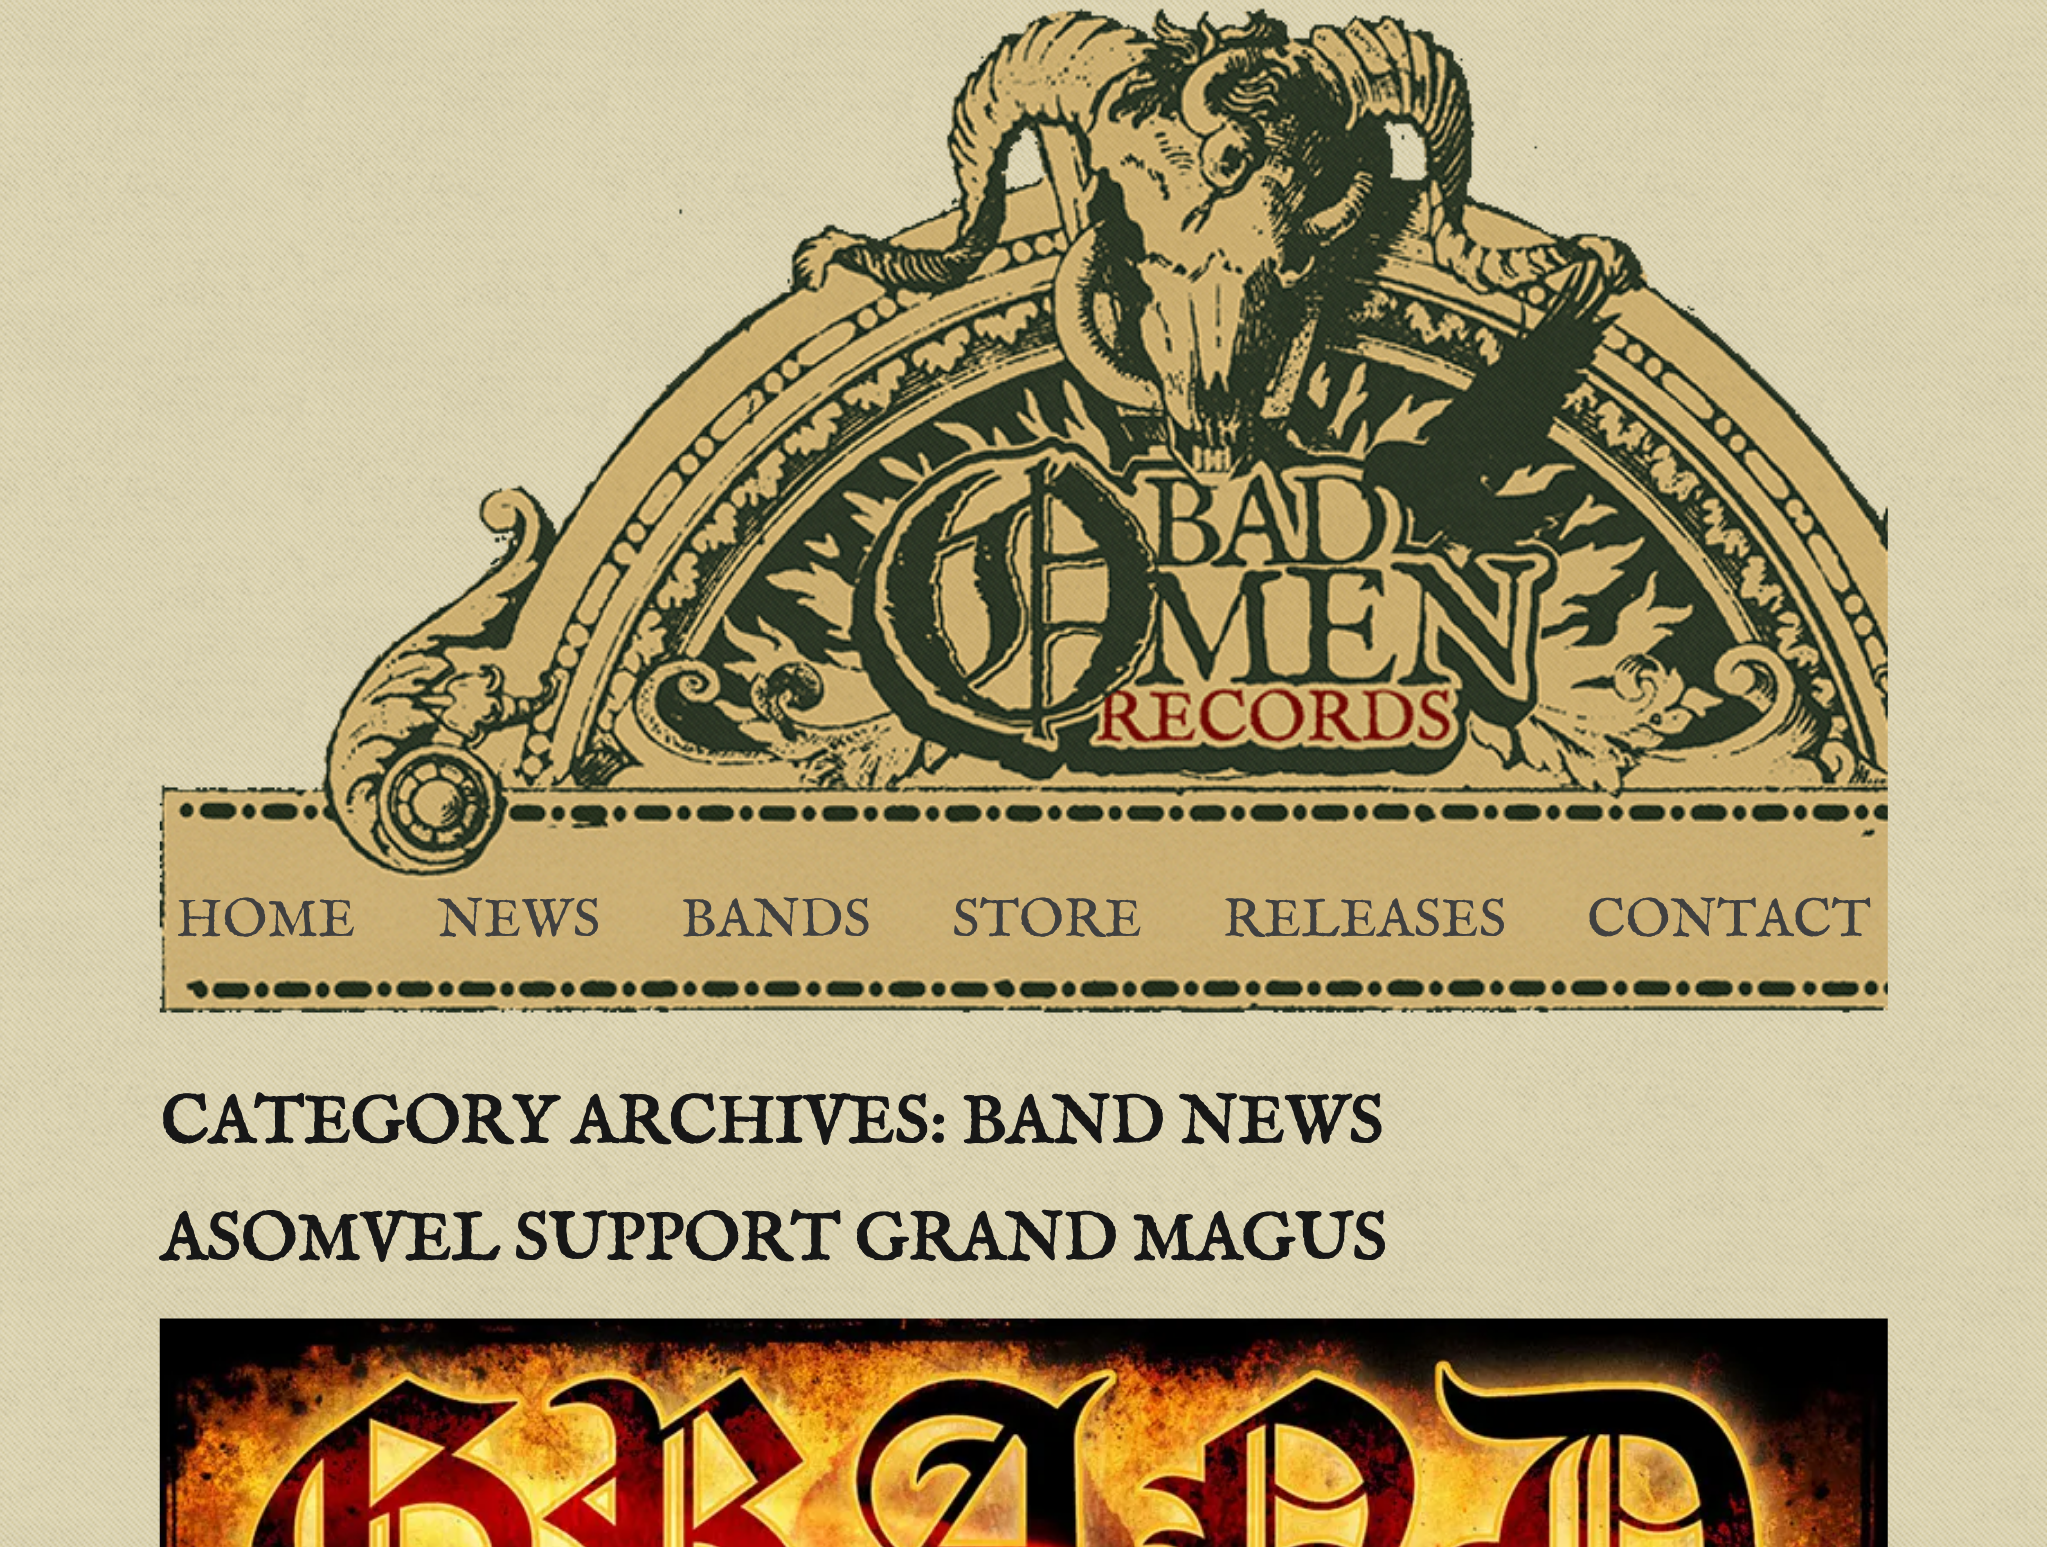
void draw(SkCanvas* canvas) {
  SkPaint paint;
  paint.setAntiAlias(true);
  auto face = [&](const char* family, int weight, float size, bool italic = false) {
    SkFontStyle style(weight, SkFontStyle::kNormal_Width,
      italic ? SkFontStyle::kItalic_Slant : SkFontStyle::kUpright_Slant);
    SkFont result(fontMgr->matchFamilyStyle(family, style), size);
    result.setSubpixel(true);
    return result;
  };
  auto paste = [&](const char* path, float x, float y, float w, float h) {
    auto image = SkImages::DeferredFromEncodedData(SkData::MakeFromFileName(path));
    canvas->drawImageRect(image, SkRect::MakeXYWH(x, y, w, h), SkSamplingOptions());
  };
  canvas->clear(0xffffffff);
  paste("img/1.png", 0, 0, 2047, 1547);
  paste("img/2.png", 159, 8, 1729, 1005);
  paste("img/3.png", 159, 1318, 1729, 229);
  auto f0 = face("IM FELL English", 400, 54);
  paint.setColor(0xff404040);
  {
    const struct { const char* s; float x, y; } items[] = {
      {"HOME", 176, 936},
      {"NEWS", 437, 936},
      {"BANDS", 681, 936},
      {"STORE", 952, 936},
      {"RELEASES", 1223, 936},
      {"CONTACT", 1587, 936},
    };
    for (auto [s, x, y] : items) {
      canvas->drawString(s, x, y, f0, paint);
    }
  }
  auto f1 = face("IM FELL English", 700, 67.5f);
  paint.setColor(0xff171717);
  canvas->drawString("CATEGORY ARCHIVES: BAND NEWS", 160, 1143, f1, paint);
  canvas->drawString("ASOMVEL SUPPORT GRAND MAGUS", 160, 1260, f1, paint);
}
